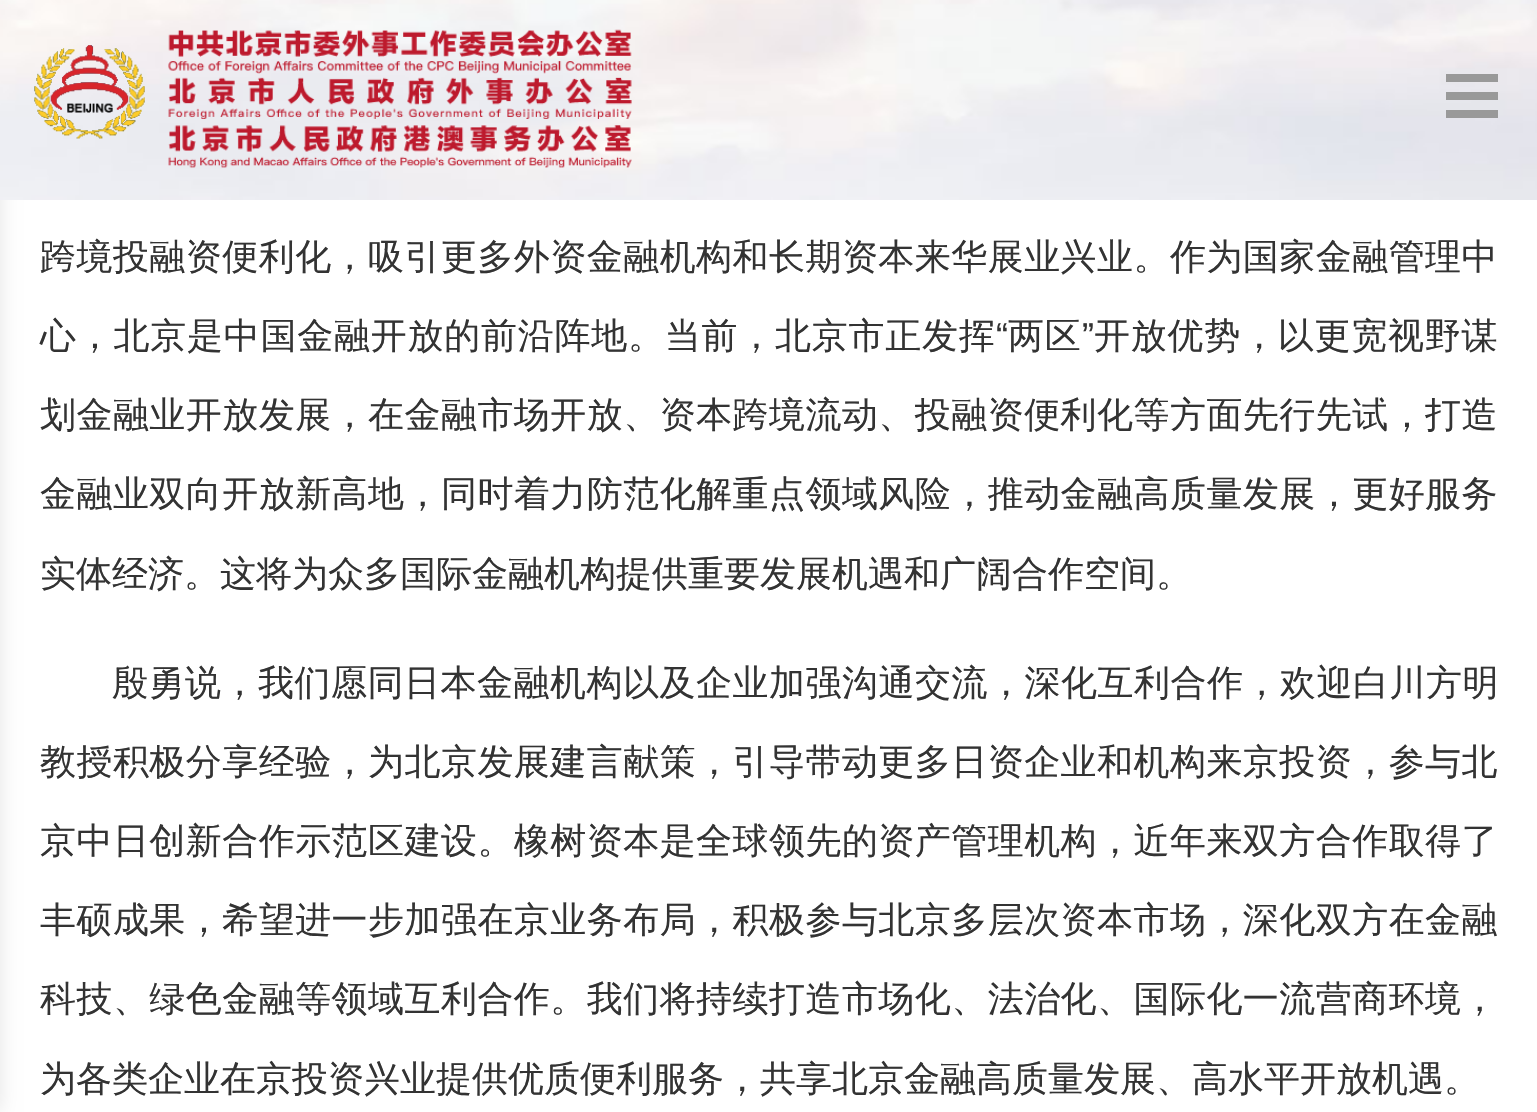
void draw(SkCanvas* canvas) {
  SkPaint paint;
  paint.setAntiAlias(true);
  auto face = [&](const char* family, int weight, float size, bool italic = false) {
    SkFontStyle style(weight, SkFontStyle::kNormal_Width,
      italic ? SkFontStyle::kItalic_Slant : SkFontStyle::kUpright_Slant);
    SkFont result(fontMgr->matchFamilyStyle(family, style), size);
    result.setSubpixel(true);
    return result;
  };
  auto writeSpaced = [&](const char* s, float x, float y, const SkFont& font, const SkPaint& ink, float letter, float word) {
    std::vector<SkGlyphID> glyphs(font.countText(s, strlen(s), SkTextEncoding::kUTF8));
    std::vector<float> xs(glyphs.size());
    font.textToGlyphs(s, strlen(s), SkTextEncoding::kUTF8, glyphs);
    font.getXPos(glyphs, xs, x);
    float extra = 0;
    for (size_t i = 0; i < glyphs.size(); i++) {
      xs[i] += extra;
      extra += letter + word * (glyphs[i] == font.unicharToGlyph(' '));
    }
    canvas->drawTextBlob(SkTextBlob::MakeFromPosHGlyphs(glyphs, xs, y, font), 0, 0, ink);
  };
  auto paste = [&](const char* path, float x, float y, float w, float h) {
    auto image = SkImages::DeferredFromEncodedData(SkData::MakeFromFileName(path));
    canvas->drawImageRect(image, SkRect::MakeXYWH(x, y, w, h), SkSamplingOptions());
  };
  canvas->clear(0xffffffff);
  paint.setColor(0x1a000000);
  paint.setMaskFilter(SkMaskFilter::MakeBlur(kNormal_SkBlurStyle, 10));
  canvas->drawRect(SkRect::MakeXYWH(-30, 0, 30, 1112), paint);
  paint.setMaskFilter(nullptr);
  paste("img/1.png", 0, 0, 1537, 200);
  paste("img/2.png", 34, 45, 111, 94);
  paste("img/3.png", 168, 29, 464, 139);
  {
    const struct { float x, y, w, h; SkColor color; } items[] = {
      {1446, 74, 52, 8, 0xff999999},
      {1446, 92, 52, 8, 0xff999999},
      {1446, 110, 52, 8, 0xff999999},
    };
    for (auto [x, y, w, h, color] : items) {
      paint.setColor(color);
      canvas->drawRect(SkRect::MakeXYWH(x, y, w, h), paint);
    }
  }
  auto f0 = face("WenQuanYi Zen Hei", 500, 36);
  paint.setColor(0xff333333);
  writeSpaced("跨境投融资便利化，吸引更多外资金融机构和长期资本来华展业兴业。作为国家金融管理中", 40, 269, f0, paint, 0.45f, 0);
  writeSpaced("心，北京是中国金融开放的前沿阵地。当前，北京市正发挥", 40, 348, f0, paint, 0.75f, 0);
  auto f1 = face("Liberation Sans", 400, 36);
  writeSpaced("“", 996, 348, f1, paint, 0.75f, 0);
  writeSpaced("两区", 1008, 348, f0, paint, 0.75f, 0);
  writeSpaced("”", 1082, 348, f1, paint, 0.75f, 0);
  writeSpaced("开放优势，以更宽视野谋", 1094, 348, f0, paint, 0.75f, 0);
  writeSpaced("划金融业开放发展，在金融市场开放、资本跨境流动、投融资便利化等方面先行先试，打造", 40, 427, f0, paint, 0.45f, 0);
  writeSpaced("金融业双向开放新高地，同时着力防范化解重点领域风险，推动金融高质量发展，更好服务", 40, 506, f0, paint, 0.45f, 0);
  canvas->drawString("实体经济。这将为众多国际金融机构提供重要发展机遇和广阔合作空间。", 40, 586, f0, paint);
  writeSpaced("殷勇说，我们愿同日本金融机构以及企业加强沟通交流，深化互利合作，欢迎白川方明", 112, 695, f0, paint, 0.5f, 0);
  {
    const struct { const char* s; float x, y; } items[] = {
      {"教授积极分享经验，为北京发展建言献策，引导带动更多日资企业和机构来京投资，参与北", 40, 774},
      {"京中日创新合作示范区建设。橡树资本是全球领先的资产管理机构，近年来双方合作取得了", 40, 853},
      {"丰硕成果，希望进一步加强在京业务布局，积极参与北京多层次资本市场，深化双方在金融", 40, 932},
      {"科技、绿色金融等领域互利合作。我们将持续打造市场化、法治化、国际化一流营商环境，", 40, 1011},
    };
    for (auto [s, x, y] : items) {
      writeSpaced(s, x, y, f0, paint, 0.45f, 0);
    }
  }
  canvas->drawString("为各类企业在京投资兴业提供优质便利服务，共享北京金融高质量发展、高水平开放机遇。", 40, 1091, f0, paint);
}
